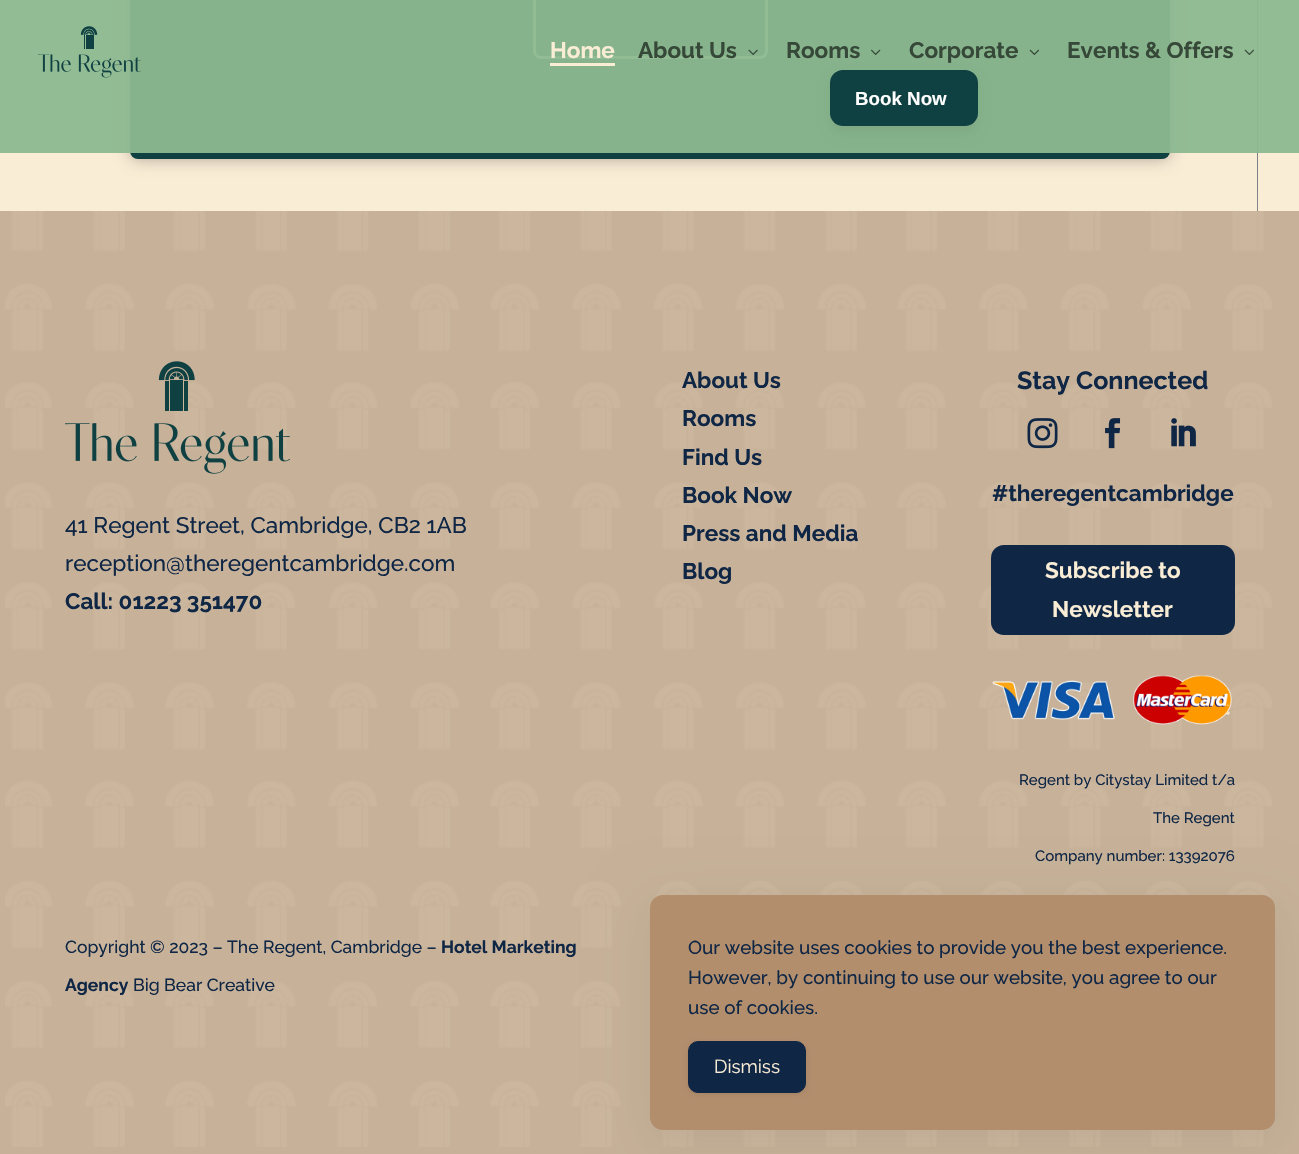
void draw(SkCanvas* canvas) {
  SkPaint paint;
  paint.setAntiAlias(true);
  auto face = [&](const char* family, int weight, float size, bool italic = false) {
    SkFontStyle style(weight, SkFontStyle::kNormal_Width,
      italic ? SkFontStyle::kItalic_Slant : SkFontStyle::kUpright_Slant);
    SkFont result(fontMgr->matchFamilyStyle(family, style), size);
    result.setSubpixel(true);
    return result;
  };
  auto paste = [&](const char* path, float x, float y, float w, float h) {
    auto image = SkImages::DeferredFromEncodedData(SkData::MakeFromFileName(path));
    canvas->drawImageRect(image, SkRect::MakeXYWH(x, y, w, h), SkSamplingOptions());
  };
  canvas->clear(0xfffaedd6);
  paint.setColor(0x4d000000);
  paint.setMaskFilter(SkMaskFilter::MakeBlur(kNormal_SkBlurStyle, 8));
  canvas->drawRoundRect(SkRect::MakeXYWH(130, -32, 1040, 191), 8, 8, paint);
  paint.setMaskFilter(nullptr);
  paint.setColor(0xff0f4042);
  canvas->drawRoundRect(SkRect::MakeXYWH(130, -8, 1040, 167), 8, 8, paint);
  paint.setStroke(true);
  paint.setStrokeWidth(3);
  paint.setColor(0xfffaedd6);
  canvas->drawRoundRect(SkRect::MakeXYWH(534.5f, -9.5f, 232, 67), 6.5f, 6.5f, paint);
  paste("img/6.png", 1257, 0, 1, 211);
  paint.setStroke(false);
  paint.setColor(0xf28cb88f);
  canvas->drawRect(SkRect::MakeXYWH(0, 0, 1299, 153), paint);
  paste("img/1.png", 38, 26, 103, 52);
  paint.setColor(0xfffaedd6);
  canvas->drawRect(SkRect::MakeXYWH(550, 63, 65, 3), paint);
  paste("img/2.png", 748, 49, 10, 6);
  paste("img/3.png", 871, 49, 10, 6);
  paste("img/4.png", 1029, 49, 10, 6);
  paste("img/5.png", 1244, 49, 10, 6);
  paint.setColor(0x0f000000);
  paint.setMaskFilter(SkMaskFilter::MakeBlur(kNormal_SkBlurStyle, 6));
  canvas->drawRoundRect(SkRect::MakeXYWH(830, 76, 148, 57), 13, 13, paint);
  paint.setMaskFilter(nullptr);
  paint.setColor(0xff0f4042);
  canvas->drawRoundRect(SkRect::MakeXYWH(830, 70, 148, 56), 13, 13, paint);
  paint.setColor(0xffc7b299);
  canvas->drawRect(SkRect::MakeXYWH(0, 211, 1299, 943), paint);
  paste("img/7.png", 5, 211, 1267, 936);
  paste("img/8.png", 65, 361, 225, 113);
  paste("img/9.png", 1027, 418, 31, 31);
  paste("img/10.png", 1105, 418, 16, 31);
  paste("img/11.png", 1171, 418, 25, 29);
  paint.setColor(0xff0f2645);
  canvas->drawRoundRect(SkRect::MakeXYWH(991, 545, 244, 90), 13, 13, paint);
  paste("img/12.png", 992, 675, 240, 50);
  paint.setColor(0x0d000000);
  paint.setMaskFilter(SkMaskFilter::MakeBlur(kNormal_SkBlurStyle, 25));
  canvas->drawRoundRect(SkRect::MakeXYWH(638, 895, 650, 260), 25, 25, paint);
  paint.setMaskFilter(nullptr);
  paint.setColor(0xffb28e6d);
  canvas->drawRoundRect(SkRect::MakeXYWH(650, 895, 625, 235), 13, 13, paint);
  paint.setColor(0x1a000000);
  paint.setMaskFilter(SkMaskFilter::MakeBlur(kNormal_SkBlurStyle, 2.5f));
  canvas->drawRoundRect(SkRect::MakeXYWH(688, 1043, 118, 51), 10, 10, paint);
  paint.setMaskFilter(nullptr);
  paint.setColor(0xff0f2645);
  canvas->drawRoundRect(SkRect::MakeXYWH(688.5f, 1041.5f, 117, 51), 9.5f, 9.5f, paint);
  paint.setStroke(true);
  paint.setStrokeWidth(1);
  canvas->drawRoundRect(SkRect::MakeXYWH(688.5f, 1041.5f, 117, 51), 9.5f, 9.5f, paint);
  auto f0 = face("Raleway", 700, 22.5f);
  paint.setStroke(false);
  paint.setColor(0xfffaedd6);
  canvas->drawString("Home", 550, 58, f0, paint);
  paint.setColor(0xff364838);
  {
    const struct { const char* s; float x, y; } items[] = {
      {"About Us", 638, 58},
      {"Rooms", 786, 58},
      {"Corporate", 909, 58},
      {"Events & Offers", 1067, 58},
    };
    for (auto [s, x, y] : items) {
      canvas->drawString(s, x, y, f0, paint);
    }
  }
  auto f1 = face("Liberation Sans", 700, 18.75f);
  paint.setColor(0xffffffff);
  canvas->drawString("Book Now", 855, 105, f1, paint);
  auto f2 = face("Raleway", 500, 22.5f);
  paint.setColor(0xff0f2645);
  canvas->drawString("41 Regent Street, Cambridge, CB2 1AB", 65, 533, f2, paint);
  canvas->drawString("reception@theregentcambridge.com", 65, 571, f2, paint);
  {
    const struct { const char* s; float x, y; } items[] = {
      {"Call: 01223 351470", 65, 609},
      {"About Us", 682, 388},
      {"Rooms", 682, 426},
      {"Find Us", 682, 465},
      {"Book Now", 682, 503},
      {"Press and Media", 682, 541},
      {"Blog", 682, 579},
    };
    for (auto [s, x, y] : items) {
      canvas->drawString(s, x, y, f0, paint);
    }
  }
  auto f3 = face("Raleway", 700, 25);
  canvas->drawString("Stay Connected", 1017, 389, f3, paint);
  canvas->drawString("#theregentcambridge", 992, 501, f0, paint);
  paint.setColor(0xfffaedd6);
  canvas->drawString("Subscribe to", 1045, 578, f0, paint);
  canvas->drawString("Newsletter", 1052, 617, f0, paint);
  auto f4 = face("Raleway", 500, 15);
  paint.setColor(0xff0f2645);
  {
    const struct { const char* s; float x, y; } items[] = {
      {"Regent by Citystay Limited t/a", 1019, 785},
      {"The Regent", 1153, 823},
      {"Company number: 13392076", 1035, 861},
    };
    for (auto [s, x, y] : items) {
      canvas->drawString(s, x, y, f4, paint);
    }
  }
  auto f5 = face("Raleway", 500, 17.5f);
  canvas->drawString("Copyright © 2023 – The Regent, Cambridge –", 65, 953, f5, paint);
  auto f6 = face("Raleway", 700, 17.5f);
  canvas->drawString("Hotel Marketing", 441, 953, f6, paint);
  canvas->drawString("Agency", 65, 991, f6, paint);
  canvas->drawString("Big Bear Creative", 133, 991, f5, paint);
  auto f7 = face("Raleway", 500, 18.75f);
  {
    const struct { const char* s; float x, y; } items[] = {
      {"Our website uses cookies to provide you the best experience.", 688, 954},
      {"However, by continuing to use our website, you agree to our", 688, 984},
      {"use of cookies.", 688, 1014},
    };
    for (auto [s, x, y] : items) {
      canvas->drawString(s, x, y, f7, paint);
    }
  }
  auto f8 = face("Raleway", 400, 18.75f);
  paint.setColor(0xfffaedd6);
  canvas->drawString("Dismiss", 714, 1073, f8, paint);
}
